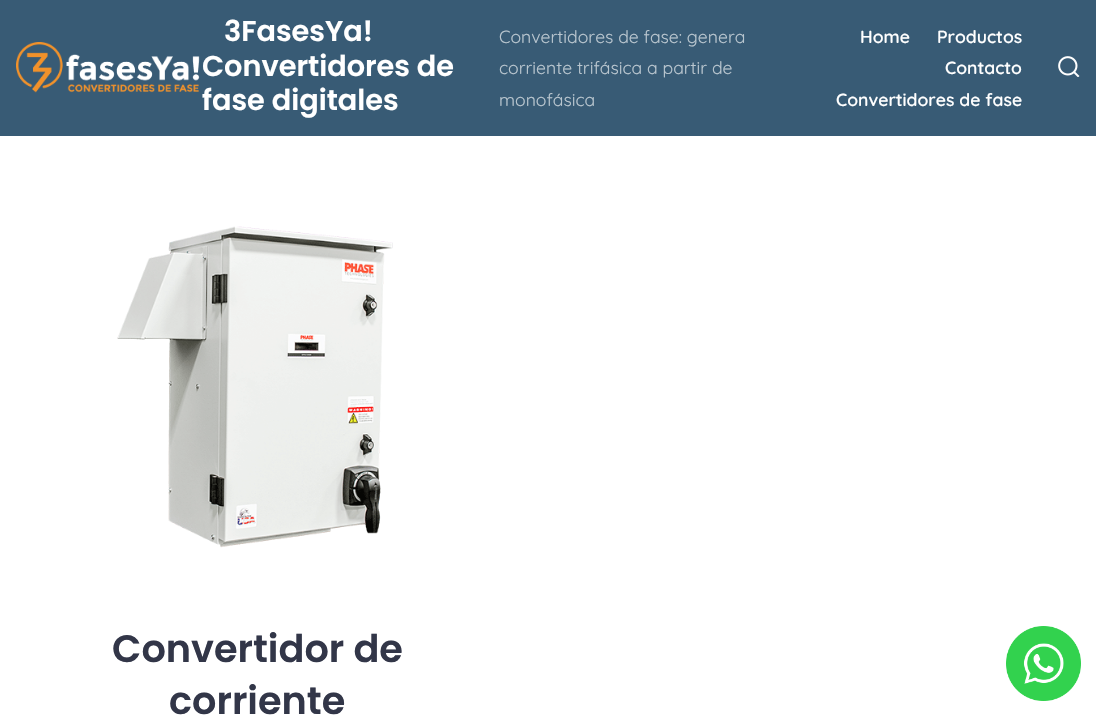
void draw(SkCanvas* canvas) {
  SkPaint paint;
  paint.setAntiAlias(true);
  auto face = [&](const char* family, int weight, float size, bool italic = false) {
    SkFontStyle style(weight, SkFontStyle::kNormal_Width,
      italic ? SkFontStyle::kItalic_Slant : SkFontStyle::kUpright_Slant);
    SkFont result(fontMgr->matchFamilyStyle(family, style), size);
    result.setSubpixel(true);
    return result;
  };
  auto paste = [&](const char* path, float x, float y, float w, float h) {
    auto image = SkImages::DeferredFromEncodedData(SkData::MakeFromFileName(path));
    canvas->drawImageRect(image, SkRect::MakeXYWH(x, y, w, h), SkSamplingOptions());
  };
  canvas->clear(0xffffffff);
  paint.setColor(0xff385b75);
  canvas->drawRect(SkRect::MakeXYWH(0, 0, 1096, 136), paint);
  paste("img/1.png", 16, 42, 184, 51);
  paste("img/2.png", 1058, 56, 22, 21);
  paste("img/3.png", 117, 226, 276, 322);
  paste("img/4.png", 1006, 626, 75, 75);
  auto f0 = face("Poppins", 600, 28.75f);
  paint.setColor(0xffffffff);
  {
    const struct { const char* s; float x, y; } items[] = {
      {"3FasesYa!", 224, 41},
      {"Convertidores de", 202, 76},
      {"fase digitales", 202, 110},
    };
    for (auto [s, x, y] : items) {
      canvas->drawString(s, x, y, f0, paint);
    }
  }
  auto f1 = face("Quicksand", 400, 17.6f);
  paint.setColor(0xffb9c6cf);
  {
    const struct { const char* s; float x, y; } items[] = {
      {"Convertidores de fase: genera", 499, 43},
      {"corriente trifásica a partir de", 499, 74},
      {"monofásica", 499, 106},
    };
    for (auto [s, x, y] : items) {
      canvas->drawString(s, x, y, f1, paint);
    }
  }
  auto f2 = face("Quicksand", 600, 17.6f);
  paint.setColor(0xffffffff);
  {
    const struct { const char* s; float x, y; } items[] = {
      {"Home", 860, 43},
      {"Productos", 937, 43},
      {"Contacto", 945, 74},
      {"Convertidores de fase", 836, 106},
    };
    for (auto [s, x, y] : items) {
      canvas->drawString(s, x, y, f2, paint);
    }
  }
  auto f3 = face("Poppins", 600, 38.25f);
  paint.setColor(0xff323648);
  canvas->drawString("Convertidor de", 112, 662, f3, paint);
  canvas->drawString("corriente", 169, 714, f3, paint);
}
